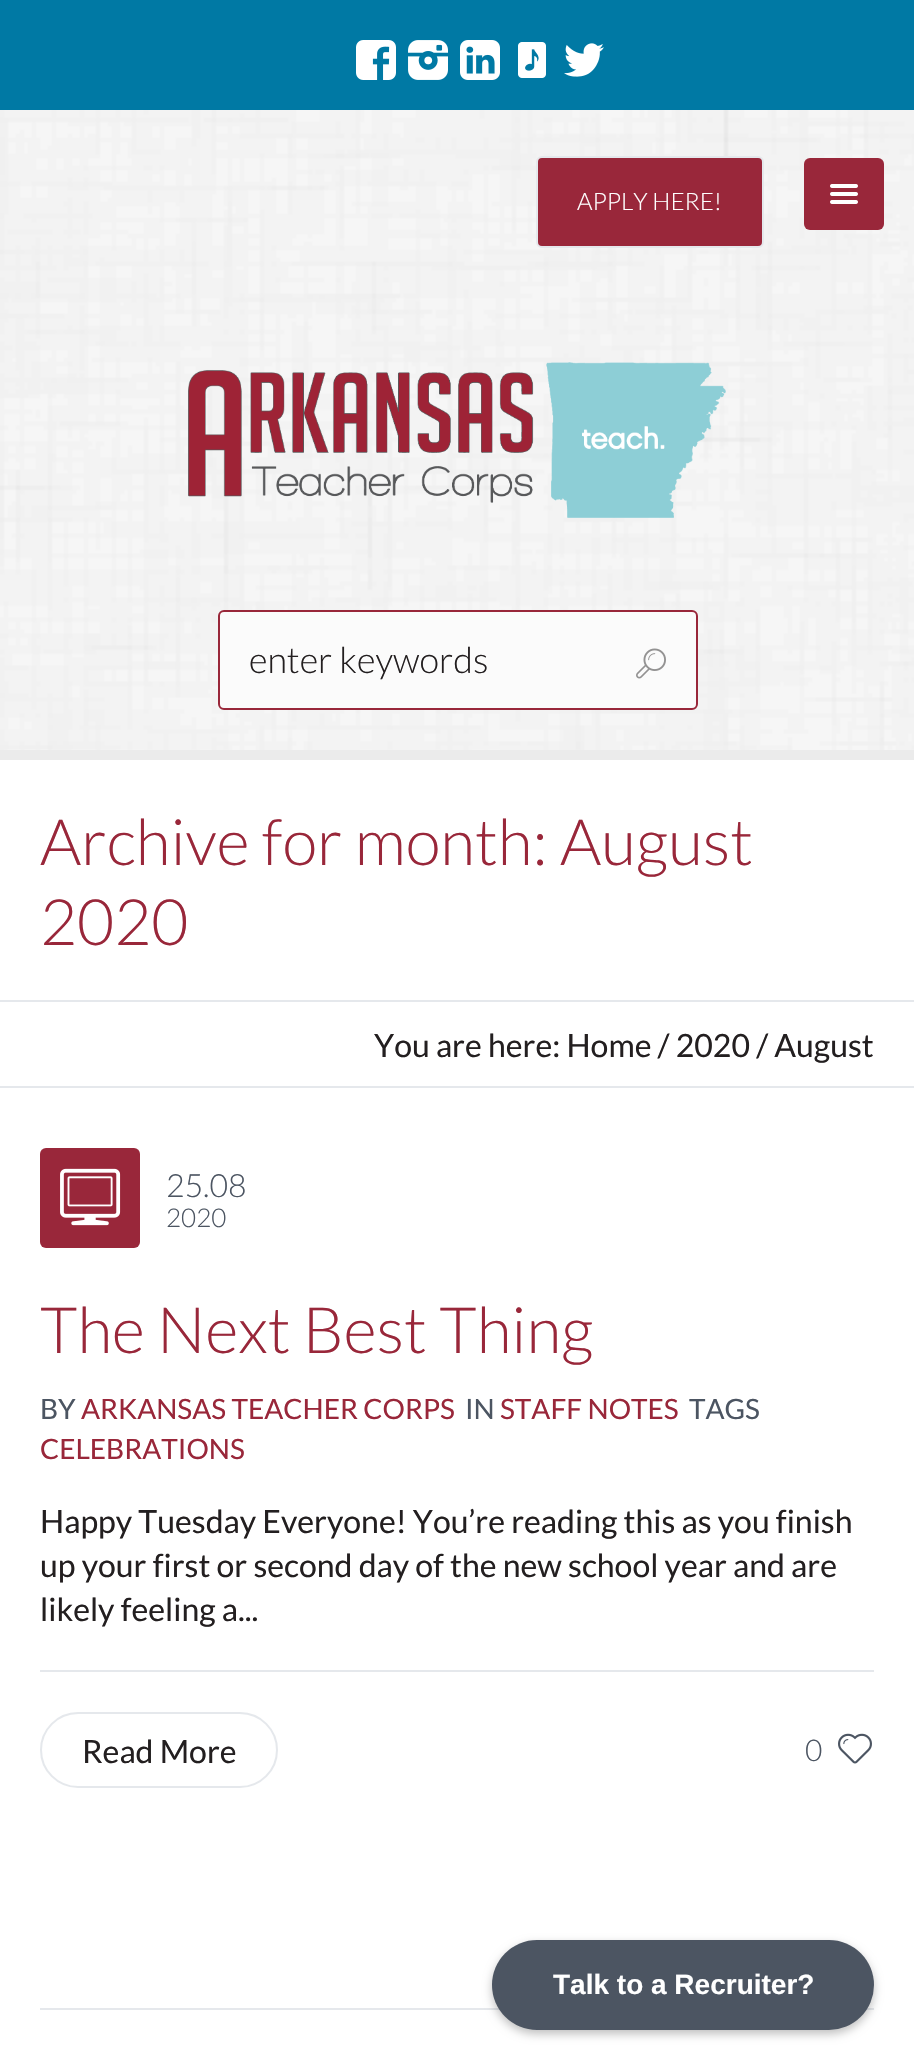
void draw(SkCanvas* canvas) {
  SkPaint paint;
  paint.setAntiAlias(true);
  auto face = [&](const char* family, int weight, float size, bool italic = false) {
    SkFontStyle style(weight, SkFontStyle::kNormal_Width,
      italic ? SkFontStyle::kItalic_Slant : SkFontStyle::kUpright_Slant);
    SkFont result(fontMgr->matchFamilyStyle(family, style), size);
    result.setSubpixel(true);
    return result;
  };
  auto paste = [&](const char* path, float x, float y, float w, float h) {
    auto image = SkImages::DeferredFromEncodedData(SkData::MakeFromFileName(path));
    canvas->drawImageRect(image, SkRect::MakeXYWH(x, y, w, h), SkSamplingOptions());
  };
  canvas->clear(0xffffffff);
  paint.setColor(0xff0079a4);
  canvas->drawRect(SkRect::MakeXYWH(0, 0, 914, 110), paint);
  paste("img/1.png", 356, 40, 40, 40);
  paste("img/2.png", 408, 40, 40, 40);
  paste("img/3.png", 460, 40, 40, 40);
  paste("img/4.png", 518, 42, 28, 36);
  paste("img/5.png", 564, 43, 40, 34);
  paste("img/6.png", 0, 110, 914, 640);
  paint.setColor(0xffebebeb);
  canvas->drawRect(SkRect::MakeXYWH(0, 750, 914, 10), paint);
  paint.setColor(0xff99273a);
  canvas->drawRoundRect(SkRect::MakeXYWH(537, 157, 226, 90), 5, 5, paint);
  paint.setStroke(true);
  paint.setStrokeWidth(2);
  paint.setColor(0xffe5e8ec);
  canvas->drawRoundRect(SkRect::MakeXYWH(537, 157, 226, 90), 5, 5, paint);
  paint.setStroke(false);
  paint.setColor(0xff99273a);
  canvas->drawRoundRect(SkRect::MakeXYWH(804, 158, 80, 72), 6, 6, paint);
  paste("img/7.png", 830, 184, 28, 20);
  paste("img/8.png", 188, 362, 538, 156);
  paint.setColor(0xfffbfbfb);
  canvas->drawRoundRect(SkRect::MakeXYWH(219, 611, 478, 98), 5, 5, paint);
  paint.setStroke(true);
  paint.setColor(0xff99273a);
  canvas->drawRoundRect(SkRect::MakeXYWH(219, 611, 478, 98), 5, 5, paint);
  paste("img/9.png", 636, 648, 30, 31);
  paint.setStroke(false);
  paint.setColor(0xffe5e8ec);
  canvas->drawRect(SkRect::MakeXYWH(0, 1000, 914, 2), paint);
  canvas->drawRect(SkRect::MakeXYWH(0, 1086, 914, 2), paint);
  paint.setColor(0xff99273a);
  canvas->drawRoundRect(SkRect::MakeXYWH(40, 1148, 100, 100), 6, 6, paint);
  paste("img/10.png", 60, 1168, 61, 58);
  paint.setColor(0xffe5e8ec);
  canvas->drawRect(SkRect::MakeXYWH(40, 1670, 834, 2), paint);
  paint.setStroke(true);
  canvas->drawRoundRect(SkRect::MakeXYWH(41, 1713, 236, 74), 37, 37, paint);
  paste("img/11.png", 838, 1733, 34, 31);
  paint.setStroke(false);
  canvas->drawRect(SkRect::MakeXYWH(40, 2008, 834, 2), paint);
  paint.setColor(0x40000000);
  paint.setMaskFilter(SkMaskFilter::MakeBlur(kNormal_SkBlurStyle, 5));
  canvas->drawRoundRect(SkRect::MakeXYWH(492, 1944, 382, 90), 45, 45, paint);
  paint.setMaskFilter(nullptr);
  paint.setColor(0xff4c5562);
  canvas->drawRoundRect(SkRect::MakeXYWH(492, 1940, 382, 90), 45, 45, paint);
  auto f0 = face("Lato", 300, 24);
  paint.setColor(0xffffffff);
  canvas->drawString("APPLY HERE!", 577, 210, f0, paint);
  auto f1 = face("Lato", 300, 36);
  paint.setColor(0xff231f20);
  canvas->drawString("enter keywords", 249, 673, f1, paint);
  auto f2 = face("Lato", 300, 64);
  paint.setColor(0xff99273a);
  canvas->drawString("Archive for month: August", 40, 865, f2, paint);
  canvas->drawString("2020", 40, 945, f2, paint);
  auto f3 = face("Lato", 400, 32);
  paint.setColor(0xff231f20);
  canvas->drawString("You are here: Home / 2020 / August", 374, 1057, f3, paint);
  auto f4 = face("Lato", 300, 32);
  paint.setColor(0xff4c5562);
  canvas->drawString("25.08", 166, 1197, f4, paint);
  auto f5 = face("Lato", 300, 26);
  canvas->drawString("2020", 166, 1227, f5, paint);
  paint.setColor(0xff99273a);
  canvas->drawString("The Next Best Thing", 40, 1353, f2, paint);
  auto f6 = face("Lato", 400, 28);
  paint.setColor(0xff4c5562);
  canvas->drawString("BY", 40, 1419, f6, paint);
  paint.setColor(0xff99273a);
  canvas->drawString("ARKANSAS TEACHER CORPS", 81, 1419, f6, paint);
  paint.setColor(0xff4c5562);
  canvas->drawString("IN", 465, 1419, f6, paint);
  paint.setColor(0xff99273a);
  canvas->drawString("STAFF NOTES", 500, 1419, f6, paint);
  paint.setColor(0xff4c5562);
  canvas->drawString("TAGS", 689, 1419, f6, paint);
  paint.setColor(0xff99273a);
  canvas->drawString("CELEBRATIONS", 40, 1459, f6, paint);
  paint.setColor(0xff231f20);
  {
    const struct { const char* s; float x, y; } items[] = {
      {"Happy Tuesday Everyone! You’re reading this as you finish", 40, 1533},
      {"up your first or second day of the new school year and are", 40, 1577},
      {"likely feeling a...", 40, 1621},
      {"Read More", 82, 1763},
    };
    for (auto [s, x, y] : items) {
      canvas->drawString(s, x, y, f3, paint);
    }
  }
  auto f7 = face("Lato", 300, 30);
  paint.setColor(0xff4c5562);
  canvas->drawString("0", 805, 1761, f7, paint);
  auto f8 = face("Liberation Sans", 700, 28);
  paint.setColor(0xffffffff);
  canvas->drawString("Talk to a Recruiter?", 553, 1994, f8, paint);
}
